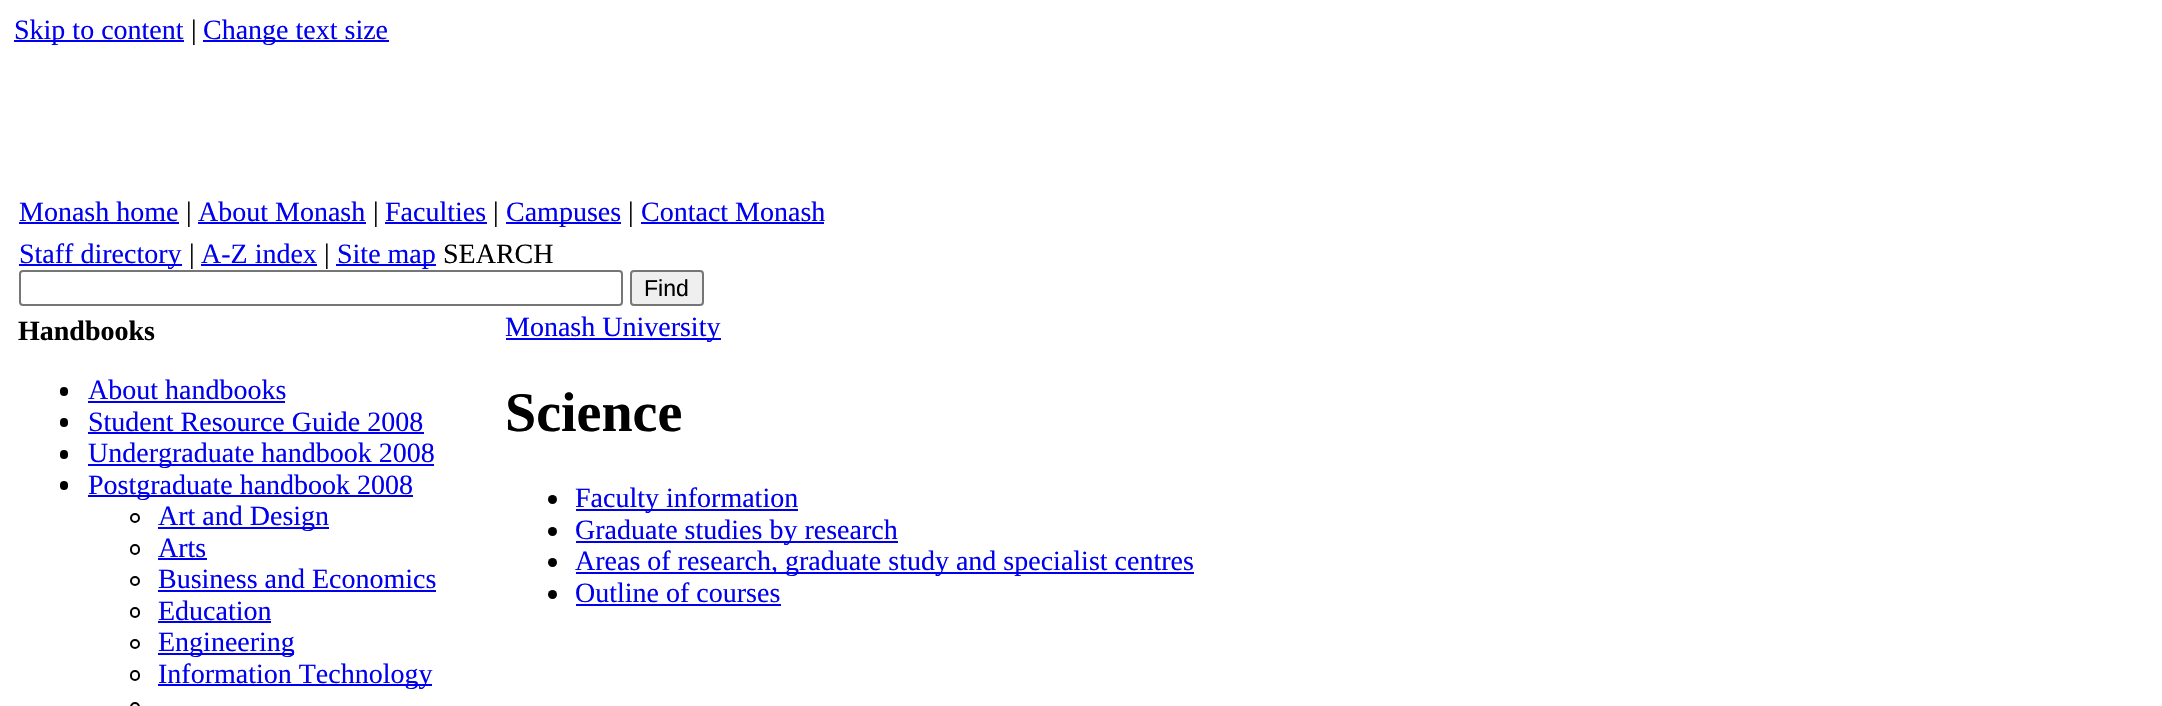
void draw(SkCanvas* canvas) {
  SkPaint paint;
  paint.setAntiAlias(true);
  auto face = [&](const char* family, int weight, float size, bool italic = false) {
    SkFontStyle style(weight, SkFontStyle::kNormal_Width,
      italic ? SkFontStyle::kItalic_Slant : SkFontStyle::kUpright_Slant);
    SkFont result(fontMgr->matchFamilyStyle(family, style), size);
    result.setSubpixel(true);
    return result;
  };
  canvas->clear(0xffffffff);
  {
    const struct { float x, y, w, h; SkColor color; } items[] = {
      {14, 40, 170, 2, 0xff0000ee},
      {203, 40, 186, 2, 0xff0000ee},
      {19, 222, 160, 2, 0xff0000ee},
      {198, 222, 168, 2, 0xff0000ee},
      {385, 222, 102, 2, 0xff0000ee},
      {506, 222, 115, 2, 0xff0000ee},
      {641, 222, 183, 2, 0xff0000ee},
      {19, 264, 163, 2, 0xff0000ee},
      {201, 264, 116, 2, 0xff0000ee},
      {336, 264, 100, 2, 0xff0000ee},
    };
    for (auto [x, y, w, h, color] : items) {
      paint.setColor(color);
      canvas->drawRect(SkRect::MakeXYWH(x, y, w, h), paint);
    }
  }
  paint.setStroke(true);
  paint.setStrokeWidth(2);
  paint.setColor(0xff767676);
  canvas->drawRoundRect(SkRect::MakeXYWH(20, 271, 602, 34), 3, 3, paint);
  paint.setStroke(false);
  paint.setColor(0xffefefef);
  canvas->drawRoundRect(SkRect::MakeXYWH(631, 271, 72, 34), 3, 3, paint);
  paint.setStroke(true);
  paint.setColor(0xff767676);
  canvas->drawRoundRect(SkRect::MakeXYWH(631, 271, 72, 34), 3, 3, paint);
  paint.setStroke(false);
  paint.setColor(0xff000000);
  canvas->drawRoundRect(SkRect::MakeXYWH(60, 387, 8, 9), 4, 4, paint);
  paint.setColor(0xff0000ee);
  canvas->drawRect(SkRect::MakeXYWH(88, 401, 197, 2), paint);
  paint.setColor(0xff000000);
  canvas->drawRoundRect(SkRect::MakeXYWH(60, 418, 8, 9), 4, 4, paint);
  paint.setColor(0xff0000ee);
  canvas->drawRect(SkRect::MakeXYWH(88, 432, 336, 2), paint);
  paint.setColor(0xff000000);
  canvas->drawRoundRect(SkRect::MakeXYWH(60, 450, 8, 9), 4, 4, paint);
  paint.setColor(0xff0000ee);
  canvas->drawRect(SkRect::MakeXYWH(88, 464, 346, 2), paint);
  paint.setColor(0xff000000);
  canvas->drawRoundRect(SkRect::MakeXYWH(60, 481, 8, 9), 4, 4, paint);
  paint.setColor(0xff0000ee);
  canvas->drawRect(SkRect::MakeXYWH(88, 495, 325, 2), paint);
  paint.setStroke(true);
  paint.setColor(0xff000000);
  canvas->drawCircle(135, 518, 4, paint);
  paint.setStroke(false);
  paint.setColor(0xff0000ee);
  canvas->drawRect(SkRect::MakeXYWH(158, 527, 171, 2), paint);
  paint.setStroke(true);
  paint.setColor(0xff000000);
  canvas->drawRoundRect(SkRect::MakeXYWH(131, 545, 8, 9), 4, 4, paint);
  paint.setStroke(false);
  paint.setColor(0xff0000ee);
  canvas->drawRect(SkRect::MakeXYWH(158, 558, 49, 2), paint);
  paint.setStroke(true);
  paint.setColor(0xff000000);
  canvas->drawCircle(135, 581, 4, paint);
  paint.setStroke(false);
  paint.setColor(0xff0000ee);
  canvas->drawRect(SkRect::MakeXYWH(158, 590, 278, 2), paint);
  paint.setStroke(true);
  paint.setColor(0xff000000);
  canvas->drawRoundRect(SkRect::MakeXYWH(131, 608, 8, 9), 4, 4, paint);
  paint.setStroke(false);
  paint.setColor(0xff0000ee);
  canvas->drawRect(SkRect::MakeXYWH(158, 621, 113, 2), paint);
  paint.setStroke(true);
  paint.setColor(0xff000000);
  canvas->drawCircle(135, 644, 4, paint);
  paint.setStroke(false);
  paint.setColor(0xff0000ee);
  canvas->drawRect(SkRect::MakeXYWH(158, 653, 136, 2), paint);
  paint.setStroke(true);
  paint.setColor(0xff000000);
  canvas->drawRoundRect(SkRect::MakeXYWH(131, 671, 8, 9), 4, 4, paint);
  paint.setStroke(false);
  paint.setColor(0xff0000ee);
  canvas->drawRect(SkRect::MakeXYWH(158, 684, 274, 2), paint);
  paint.setStroke(true);
  paint.setColor(0xff000000);
  canvas->drawCircle(135, 707, 4, paint);
  paint.setStroke(false);
  paint.setColor(0xff0000ee);
  canvas->drawRect(SkRect::MakeXYWH(506, 338, 215, 2), paint);
  paint.setColor(0xff000000);
  canvas->drawCircle(552.5f, 499.5f, 4.5f, paint);
  paint.setColor(0xff0000ee);
  canvas->drawRect(SkRect::MakeXYWH(576, 509, 222, 2), paint);
  paint.setColor(0xff000000);
  canvas->drawCircle(552.5f, 531.5f, 4.5f, paint);
  paint.setColor(0xff0000ee);
  canvas->drawRect(SkRect::MakeXYWH(576, 541, 322, 2), paint);
  paint.setColor(0xff000000);
  canvas->drawCircle(552.5f, 562.5f, 4.5f, paint);
  paint.setColor(0xff0000ee);
  canvas->drawRect(SkRect::MakeXYWH(576, 572, 618, 2), paint);
  paint.setColor(0xff000000);
  canvas->drawCircle(552.5f, 594.5f, 4.5f, paint);
  paint.setColor(0xff0000ee);
  canvas->drawRect(SkRect::MakeXYWH(576, 604, 205, 2), paint);
  auto f0 = face("Liberation Serif", 400, 28);
  canvas->drawString("Skip to content", 14, 39, f0, paint);
  paint.setColor(0xff000000);
  canvas->drawString("|", 191, 39, f0, paint);
  paint.setColor(0xff0000ee);
  canvas->drawString("Change text size", 203, 39, f0, paint);
  canvas->drawString("Monash home", 19, 221, f0, paint);
  paint.setColor(0xff000000);
  canvas->drawString("|", 186, 221, f0, paint);
  paint.setColor(0xff0000ee);
  canvas->drawString("About Monash", 198, 221, f0, paint);
  paint.setColor(0xff000000);
  canvas->drawString("|", 373, 221, f0, paint);
  paint.setColor(0xff0000ee);
  canvas->drawString("Faculties", 385, 221, f0, paint);
  paint.setColor(0xff000000);
  canvas->drawString("|", 493, 221, f0, paint);
  paint.setColor(0xff0000ee);
  canvas->drawString("Campuses", 506, 221, f0, paint);
  paint.setColor(0xff000000);
  canvas->drawString("|", 628, 221, f0, paint);
  paint.setColor(0xff0000ee);
  canvas->drawString("Contact Monash", 641, 221, f0, paint);
  canvas->drawString("Staff directory", 19, 263, f0, paint);
  paint.setColor(0xff000000);
  canvas->drawString("|", 189, 263, f0, paint);
  paint.setColor(0xff0000ee);
  canvas->drawString("A-Z index", 201, 263, f0, paint);
  paint.setColor(0xff000000);
  canvas->drawString("|", 324, 263, f0, paint);
  paint.setColor(0xff0000ee);
  canvas->drawString("Site map", 337, 263, f0, paint);
  paint.setColor(0xff000000);
  canvas->drawString("SEARCH", 443, 263, f0, paint);
  auto f1 = face("Liberation Sans", 400, 23);
  canvas->drawString("Find", 644, 296, f1, paint);
  auto f2 = face("Liberation Serif", 700, 28);
  canvas->drawString("Handbooks", 18, 340, f2, paint);
  paint.setColor(0xff0000ee);
  {
    const struct { const char* s; float x, y; } items[] = {
      {"About handbooks", 88, 399},
      {"Student Resource Guide 2008", 88, 431},
      {"Undergraduate handbook 2008", 88, 462},
      {"Postgraduate handbook 2008", 88, 494},
      {"Art and Design", 158, 525},
      {"Arts", 158, 557},
      {"Business and Economics", 158, 588},
      {"Education", 158, 620},
      {"Engineering", 158, 651},
      {"Information Technology", 158, 683},
      {"Monash University", 505, 336},
    };
    for (auto [s, x, y] : items) {
      canvas->drawString(s, x, y, f0, paint);
    }
  }
  auto f3 = face("Liberation Serif", 700, 56);
  paint.setColor(0xff000000);
  canvas->drawString("Science", 505, 431, f3, paint);
  paint.setColor(0xff0000ee);
  {
    const struct { const char* s; float x, y; } items[] = {
      {"Faculty information", 575, 507},
      {"Graduate studies by research", 575, 539},
      {"Areas of research, graduate study and specialist centres", 575, 570},
      {"Outline of courses", 575, 602},
    };
    for (auto [s, x, y] : items) {
      canvas->drawString(s, x, y, f0, paint);
    }
  }
}
